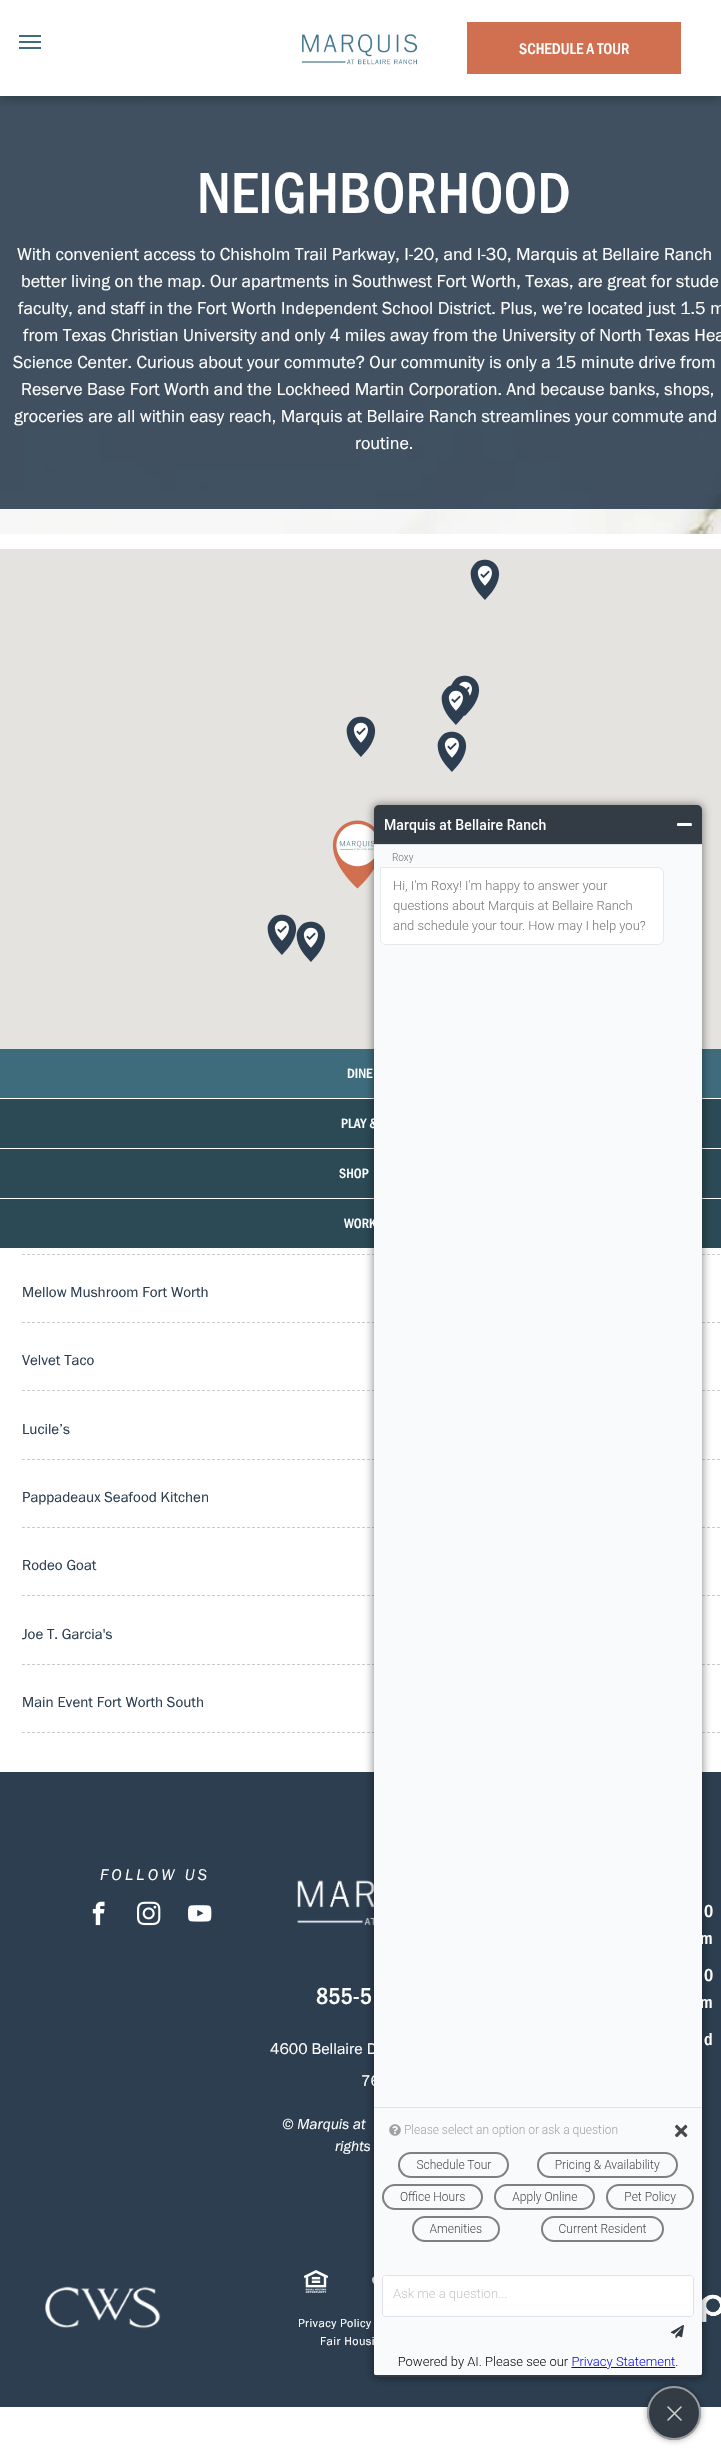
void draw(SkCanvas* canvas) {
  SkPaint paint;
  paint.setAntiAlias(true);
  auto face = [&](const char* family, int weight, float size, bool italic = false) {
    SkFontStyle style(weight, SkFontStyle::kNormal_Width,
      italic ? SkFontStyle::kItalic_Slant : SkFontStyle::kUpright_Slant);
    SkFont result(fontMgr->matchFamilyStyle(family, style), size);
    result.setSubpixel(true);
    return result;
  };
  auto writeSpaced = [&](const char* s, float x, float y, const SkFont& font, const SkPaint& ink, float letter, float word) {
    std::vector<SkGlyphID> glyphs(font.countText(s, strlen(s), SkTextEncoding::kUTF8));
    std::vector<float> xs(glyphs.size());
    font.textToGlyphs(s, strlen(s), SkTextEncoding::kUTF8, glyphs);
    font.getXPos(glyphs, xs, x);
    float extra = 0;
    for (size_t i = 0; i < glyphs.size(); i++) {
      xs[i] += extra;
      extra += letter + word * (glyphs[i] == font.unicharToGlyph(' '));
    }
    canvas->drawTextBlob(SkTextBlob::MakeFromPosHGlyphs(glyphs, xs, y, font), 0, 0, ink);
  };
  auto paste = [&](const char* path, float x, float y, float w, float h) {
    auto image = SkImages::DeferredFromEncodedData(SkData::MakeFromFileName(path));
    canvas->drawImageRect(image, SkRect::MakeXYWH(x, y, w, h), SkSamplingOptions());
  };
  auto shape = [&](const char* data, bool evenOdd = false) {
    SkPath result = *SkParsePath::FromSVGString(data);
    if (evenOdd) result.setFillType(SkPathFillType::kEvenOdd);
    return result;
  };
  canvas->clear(0xffffffff);
  paste("img/2.png", 0, 96, 721, 413);
  canvas->save();
  canvas->clipRect(SkRect::MakeXYWH(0, 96, 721, 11));
  paint.setColor(0x40000000);
  paint.setMaskFilter(SkMaskFilter::MakeBlur(kNormal_SkBlurStyle, 5.5f));
  canvas->drawRect(SkRect::MakeXYWH(0, 3, 721, 96), paint);
  paint.setMaskFilter(nullptr);
  canvas->restore();
  {
    const struct { float x, y, w, h; SkColor color; } items[] = {
      {19, 35, 22, 2, 0xff3f6c7d},
      {19, 41, 22, 2, 0xff3f6c7d},
      {19, 47, 22, 2, 0xff3f6c7d},
    };
    for (auto [x, y, w, h, color] : items) {
      paint.setColor(color);
      canvas->drawRect(SkRect::MakeXYWH(x, y, w, h), paint);
    }
  }
  paste("img/1.png", 301, 34, 117, 31);
  paint.setColor(0xffd17051);
  canvas->drawRect(SkRect::MakeXYWH(467, 22, 214, 52), paint);
  paste("img/3.png", 0, 509, 721, 25);
  paint.setColor(0xffe5e3df);
  canvas->drawRect(SkRect::MakeXYWH(0, 549, 721, 500), paint);
  paste("img/4.png", 470, 559, 30, 41);
  paste("img/5.png", 451, 675, 29, 41);
  paste("img/6.png", 441, 685, 29, 40);
  paste("img/4.png", 346, 716, 30, 41);
  paste("img/4.png", 437, 731, 30, 41);
  paste("img/7.png", 332, 820, 42, 69);
  paste("img/4.png", 267, 914, 30, 41);
  paste("img/8.png", 296, 921, 30, 41);
  {
    const struct { float x, y, w, h; SkColor color; } items[] = {
      {0, 1049, 721, 49, 0xff3f6c7d},
      {0, 1099, 721, 49, 0xff2b4a55},
      {0, 1149, 721, 49, 0xff2b4a55},
      {0, 1199, 721, 49, 0xff2b4a55},
    };
    for (auto [x, y, w, h, color] : items) {
      paint.setColor(color);
      canvas->drawRect(SkRect::MakeXYWH(x, y, w, h), paint);
    }
  }
  paint.setStroke(true);
  paint.setStrokeWidth(1);
  paint.setColor(0xffcccccc);
  paint.setPathEffect(SkDashPathEffect::Make({{3, 2}}, 0));
  canvas->drawPath(shape("M22 1254.5H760"), paint);
  paint.setPathEffect(nullptr);
  paint.setPathEffect(SkDashPathEffect::Make({{3, 2}}, 0));
  canvas->drawPath(shape("M22 1322.5H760"), paint);
  paint.setPathEffect(nullptr);
  paint.setPathEffect(SkDashPathEffect::Make({{3, 2}}, 0));
  canvas->drawPath(shape("M22 1390.5H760"), paint);
  paint.setPathEffect(nullptr);
  paint.setPathEffect(SkDashPathEffect::Make({{3, 2}}, 0));
  canvas->drawPath(shape("M22 1459.5H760"), paint);
  paint.setPathEffect(nullptr);
  paint.setPathEffect(SkDashPathEffect::Make({{3, 2}}, 0));
  canvas->drawPath(shape("M22 1527.5H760"), paint);
  paint.setPathEffect(nullptr);
  paint.setPathEffect(SkDashPathEffect::Make({{3, 2}}, 0));
  canvas->drawPath(shape("M22 1595.5H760"), paint);
  paint.setPathEffect(nullptr);
  paint.setPathEffect(SkDashPathEffect::Make({{3, 2}}, 0));
  canvas->drawPath(shape("M22 1664.5H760"), paint);
  paint.setPathEffect(nullptr);
  paint.setPathEffect(SkDashPathEffect::Make({{3, 2}}, 0));
  canvas->drawPath(shape("M22 1732.5H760"), paint);
  paint.setPathEffect(nullptr);
  paint.setStroke(false);
  paint.setColor(0xff2c3e50);
  canvas->drawRect(SkRect::MakeXYWH(0, 1772, 721, 635), paint);
  paste("img/9.png", 92, 1901, 13, 25);
  paste("img/10.png", 137, 1901, 24, 25);
  paste("img/11.png", 188, 1905, 24, 17);
  paste("img/12.png", 297, 1880, 77, 46);
  paste("img/13.png", 45, 2286, 116, 43);
  paste("img/14.png", 702, 2294, 19, 28);
  paste("img/15.png", 304, 2270, 24, 23);
  paste("img/16.png", 372, 2276, 2, 8);
  paint.setColor(0x54000000);
  paint.setMaskFilter(SkMaskFilter::MakeBlur(kNormal_SkBlurStyle, 3));
  canvas->drawRoundRect(SkRect::MakeXYWH(647, 2386, 54, 54), 27, 27, paint);
  paint.setMaskFilter(nullptr);
  paint.setColor(0xff333c44);
  canvas->drawCircle(674, 2413, 27, paint);
  paint.setStroke(true);
  paint.setStrokeWidth(2);
  paint.setColor(0x80ffffff);
  canvas->drawCircle(674, 2413, 26, paint);
  paint.setStroke(false);
  paint.setColor(0x6b000000);
  paint.setMaskFilter(SkMaskFilter::MakeBlur(kNormal_SkBlurStyle, 4));
  canvas->drawRoundRect(SkRect::MakeXYWH(373, 804, 330, 1574), 6, 6, paint);
  paint.setMaskFilter(nullptr);
  paint.setStroke(true);
  paint.setStrokeWidth(1.6f);
  paint.setStrokeCap(SkPaint::kRound_Cap);
  paint.setStrokeJoin(SkPaint::kRound_Join);
  paint.setColor(0xffccced0);
  canvas->drawPath(shape("M668 2420L681 2407M668 2407L681 2420"), paint);
  auto f0 = face("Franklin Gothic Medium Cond", 500, 16);
  paint.setStroke(false);
  paint.setColor(0xffffffff);
  canvas->drawString("SCHEDULE A TOUR", 519, 54, f0, paint);
  auto f1 = face("Franklin Gothic Medium Cond", 500, 60);
  canvas->drawString("NEIGHBORHOOD", 197, 213, f1, paint);
  auto f2 = face("Franklin Gothic", 400, 18);
  {
    const struct { const char* s; float x, y; } items[] = {
      {"With convenient access to Chisholm Trail Parkway, I-20, and I-30, Marquis at Bellaire Ranch", 17, 260},
      {"better living on the map. Our apartments in Southwest Fort Worth, Texas, are great for stude", 21, 287},
      {"faculty, and staff in the Fort Worth Independent School District. Plus, we’re located just 1.5 m", 18, 314},
      {"from Texas Christian University and only 4 miles away from the University of North Texas Hea", 23, 341},
      {"Science Center. Curious about your commute? Our community is only a 15 minute drive from", 13, 368},
      {"Reserve Base Fort Worth and the Lockheed Martin Corporation. And because banks, shops,", 21, 395},
      {"groceries are all within easy reach, Marquis at Bellaire Ranch streamlines your commute and", 14, 422},
      {"routine.", 355, 449},
    };
    for (auto [s, x, y] : items) {
      canvas->drawString(s, x, y, f2, paint);
    }
  }
  auto f3 = face("Franklin Gothic Medium Cond", 500, 14);
  {
    const struct { const char* s; float x, y; } items[] = {
      {"DINE", 347, 1078},
      {"PLAY &", 341, 1128},
      {"SHOP", 339, 1178},
      {"WORK", 344, 1228},
    };
    for (auto [s, x, y] : items) {
      canvas->drawString(s, x, y, f3, paint);
    }
  }
  auto f4 = face("Franklin Gothic", 400, 15);
  paint.setColor(0xff2c3e50);
  {
    const struct { const char* s; float x, y; } items[] = {
      {"Mellow Mushroom Fort Worth", 22, 1297},
      {"Velvet Taco", 22, 1365},
      {"Lucile’s", 22, 1434},
      {"Pappadeaux Seafood Kitchen", 22, 1502},
      {"Rodeo Goat", 22, 1570},
      {"Joe T. Garcia's", 22, 1639},
      {"Main Event Fort Worth South", 22, 1707},
    };
    for (auto [s, x, y] : items) {
      canvas->drawString(s, x, y, f4, paint);
    }
  }
  auto f5 = face("Franklin Gothic", 400, 16, true);
  paint.setColor(0xffffffff);
  writeSpaced("FOLLOW US", 100, 1880, f5, paint, 3.25f, 0);
  auto f6 = face("Franklin Gothic Medium Cond", 500, 24);
  canvas->drawString("855-5", 316, 2004, f6, paint);
  auto f7 = face("Franklin Gothic", 400, 16);
  canvas->drawString("4600 Bellaire D", 270, 2054, f7, paint);
  canvas->drawString("76", 361, 2086, f7, paint);
  auto f8 = face("Franklin Gothic", 400, 15, true);
  canvas->drawString("© Marquis at", 282, 2129, f8, paint);
  canvas->drawString("rights", 335, 2151, f8, paint);
  auto f9 = face("Franklin Gothic Medium Cond", 500, 18);
  {
    const struct { const char* s; float x, y; } items[] = {
      {"0", 704, 1917},
      {"m", 700, 1944},
      {"0", 704, 1981},
      {"m", 700, 2008},
      {"d", 704, 2045},
    };
    for (auto [s, x, y] : items) {
      canvas->drawString(s, x, y, f9, paint);
    }
  }
  auto f10 = face("Franklin Gothic", 400, 12);
  writeSpaced("Privacy Policy", 298, 2327, f10, paint, 0.4f, 0);
  writeSpaced("Fair Housi", 320, 2345, f10, paint, 0.4f, 0);
  paste("img/17.png", 374, 805, 328, 1572);
}
